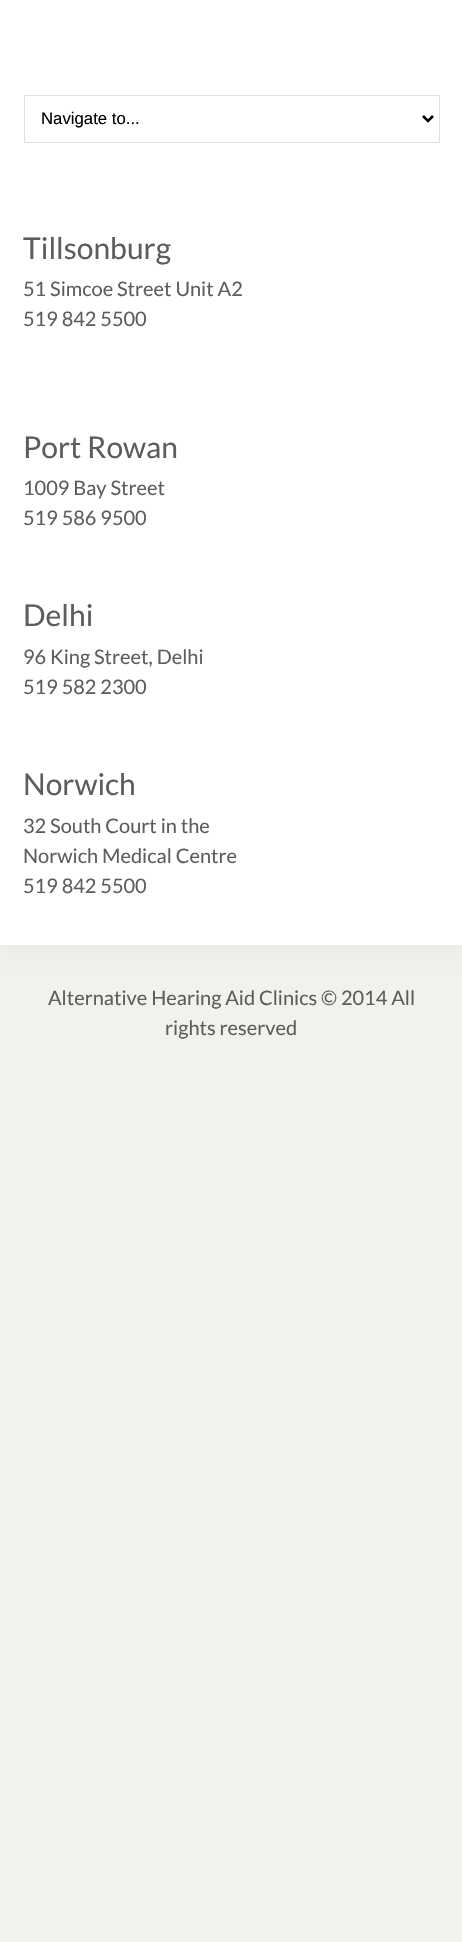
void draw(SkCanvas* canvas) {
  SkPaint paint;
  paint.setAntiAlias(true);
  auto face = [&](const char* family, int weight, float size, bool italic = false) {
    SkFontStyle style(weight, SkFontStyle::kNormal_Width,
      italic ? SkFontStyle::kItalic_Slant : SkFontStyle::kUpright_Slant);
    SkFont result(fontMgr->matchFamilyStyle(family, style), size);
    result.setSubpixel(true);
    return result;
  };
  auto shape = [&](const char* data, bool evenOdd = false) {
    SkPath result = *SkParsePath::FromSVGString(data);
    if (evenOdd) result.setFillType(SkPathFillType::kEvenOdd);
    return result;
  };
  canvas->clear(0xfff3f1ec);
  paint.setColor(0x0d000000);
  paint.setMaskFilter(SkMaskFilter::MakeBlur(kNormal_SkBlurStyle, 9.5f));
  canvas->drawRect(SkRect::MakeXYWH(0, 0, 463, 945), paint);
  paint.setMaskFilter(nullptr);
  paint.setColor(0xffffffff);
  canvas->drawRect(SkRect::MakeXYWH(0, 0, 462, 945), paint);
  paint.setStroke(true);
  paint.setStrokeWidth(1);
  paint.setColor(0xffe1e1e1);
  canvas->drawRect(SkRect::MakeXYWH(24.5f, 95.5f, 415, 47), paint);
  paint.setStrokeWidth(2.5f);
  paint.setColor(0xff000000);
  canvas->drawPath(shape("M423 116L428 121L433 116"), paint);
  auto f0 = face("Liberation Sans", 400, 16.75f);
  paint.setStroke(false);
  canvas->drawString("Navigate to...", 41, 124, f0, paint);
  auto f1 = face("Lato", 400, 30);
  paint.setColor(0xff5d5d5d);
  canvas->drawString("Tillsonburg", 23, 259, f1, paint);
  auto f2 = face("Lato", 400, 20);
  canvas->drawString("51 Simcoe Street Unit A2", 23, 296, f2, paint);
  canvas->drawString("519 842 5500", 23, 326, f2, paint);
  canvas->drawString("Port Rowan", 23, 458, f1, paint);
  canvas->drawString("1009 Bay Street", 23, 495, f2, paint);
  canvas->drawString("519 586 9500", 23, 525, f2, paint);
  canvas->drawString("Delhi", 23, 626, f1, paint);
  canvas->drawString("96 King Street, Delhi", 23, 664, f2, paint);
  canvas->drawString("519 582 2300", 23, 694, f2, paint);
  canvas->drawString("Norwich", 23, 795, f1, paint);
  {
    const struct { const char* s; float x, y; } items[] = {
      {"32 South Court in the", 23, 833},
      {"Norwich Medical Centre", 23, 863},
      {"519 842 5500", 23, 893},
      {"Alternative Hearing Aid Clinics © 2014 All", 48, 1005},
      {"rights reserved", 165, 1035},
    };
    for (auto [s, x, y] : items) {
      canvas->drawString(s, x, y, f2, paint);
    }
  }
}
